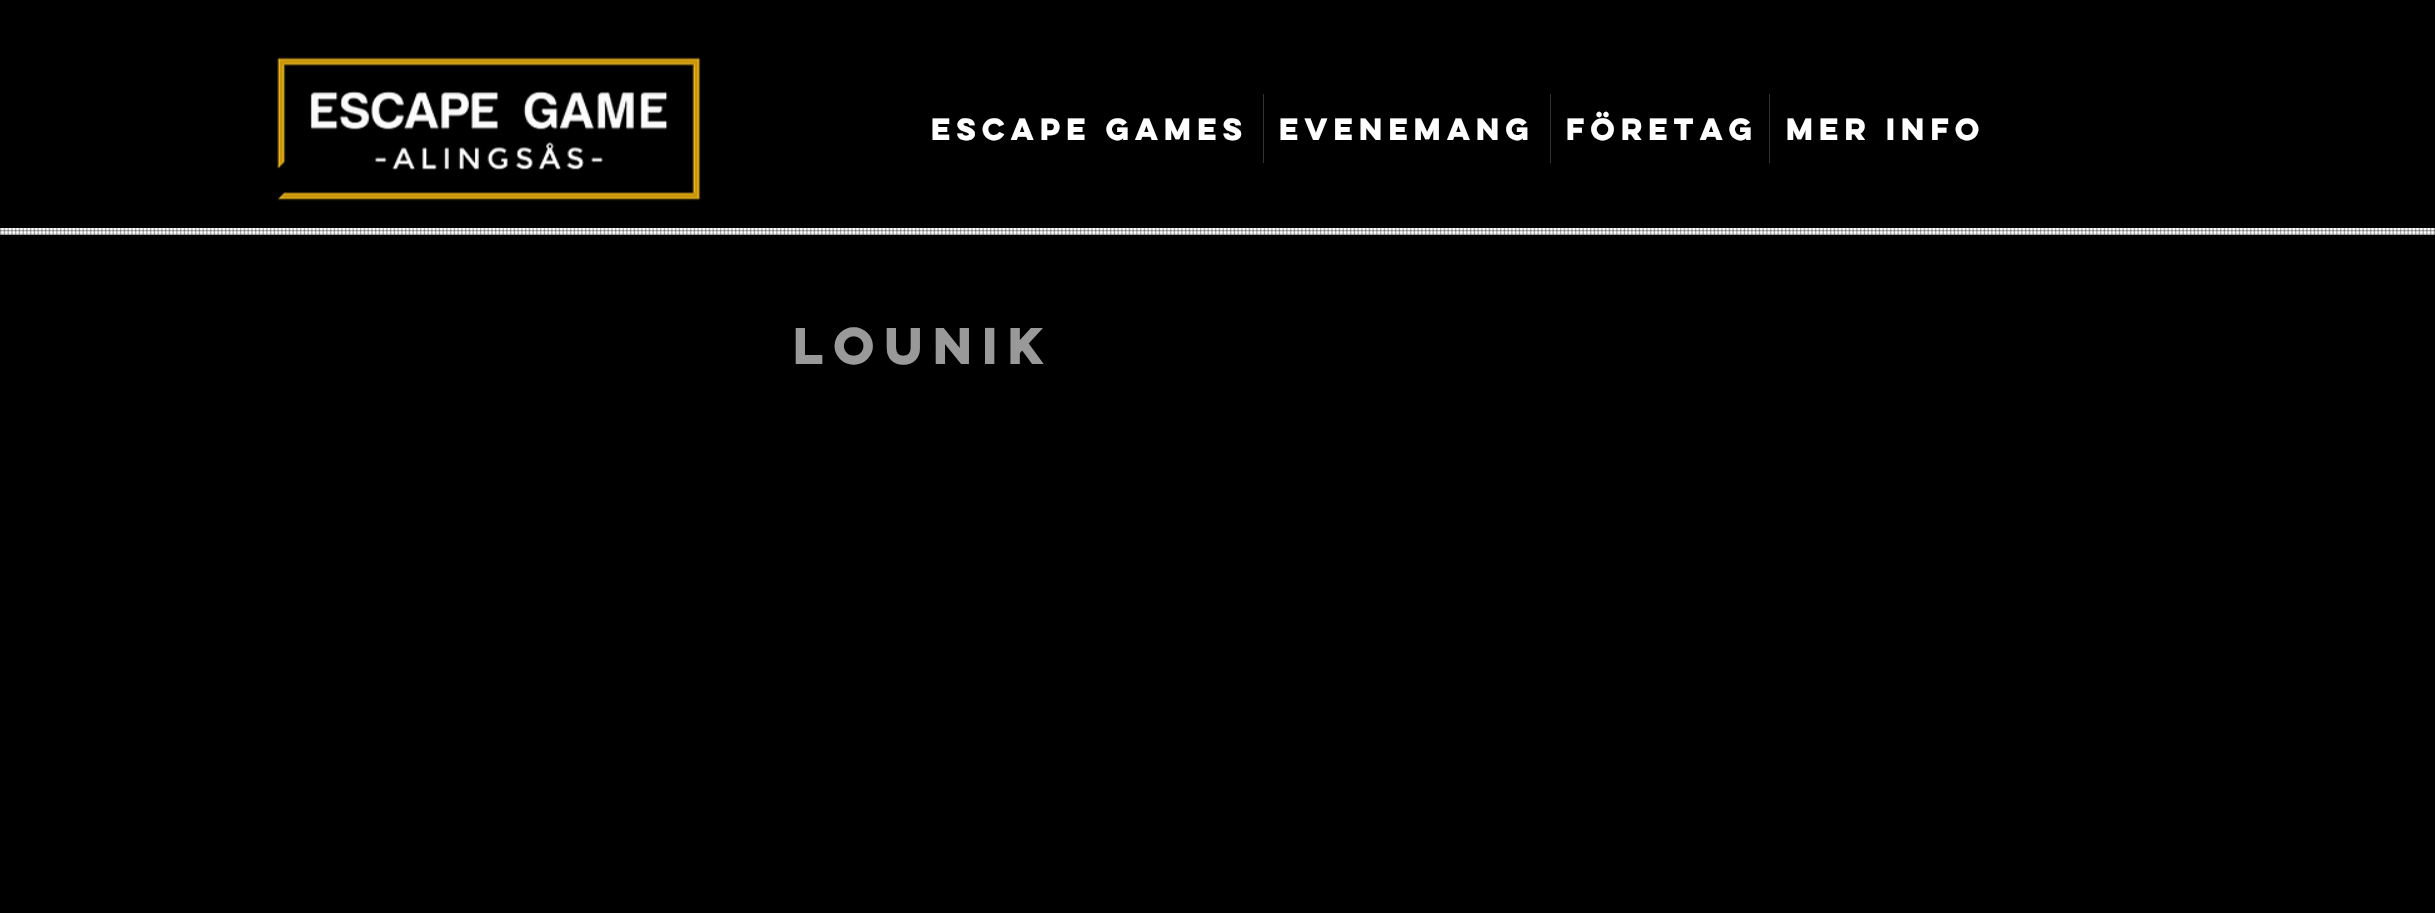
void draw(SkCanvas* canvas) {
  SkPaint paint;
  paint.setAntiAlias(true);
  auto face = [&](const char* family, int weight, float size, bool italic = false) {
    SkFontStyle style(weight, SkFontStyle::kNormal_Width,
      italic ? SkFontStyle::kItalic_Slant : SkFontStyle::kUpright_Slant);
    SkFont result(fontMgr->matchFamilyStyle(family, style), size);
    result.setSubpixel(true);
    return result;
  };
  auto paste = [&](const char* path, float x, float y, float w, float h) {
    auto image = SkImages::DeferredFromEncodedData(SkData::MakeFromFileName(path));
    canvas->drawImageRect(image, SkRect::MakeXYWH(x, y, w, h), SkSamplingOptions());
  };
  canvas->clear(0xffffffff);
  paint.setColor(0xff000000);
  canvas->drawRect(SkRect::MakeXYWH(0, 0, 2435, 228), paint);
  paste("img/1.png", 277, 57, 424, 144);
  {
    const struct { float x, y, w, h; SkColor color; } items[] = {
      {1263, 94, 1, 69, 0xff333333},
      {1550, 94, 1, 69, 0xff333333},
      {1769, 94, 1, 69, 0xff333333},
      {0, 235, 2435, 678, 0xff000000},
    };
    for (auto [x, y, w, h, color] : items) {
      paint.setColor(color);
      canvas->drawRect(SkRect::MakeXYWH(x, y, w, h), paint);
    }
  }
  paste("img/2.png", 0, 228, 2435, 7);
  auto f0 = face("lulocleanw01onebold", 700, 27.5f);
  paint.setColor(0xffffffff);
  {
    const struct { const char* s; float x, y; } items[] = {
      {"Escape Games", 931, 140},
      {"Evenemang", 1279, 140},
      {"Företag", 1566, 140},
      {"Mer info", 1786, 140},
    };
    for (auto [s, x, y] : items) {
      canvas->drawString(s, x, y, f0, paint);
    }
  }
  auto f1 = face("lulocleanw01onebold", 700, 46.25f);
  paint.setColor(0xff999999);
  canvas->drawString("LouNik", 793, 364, f1, paint);
}
